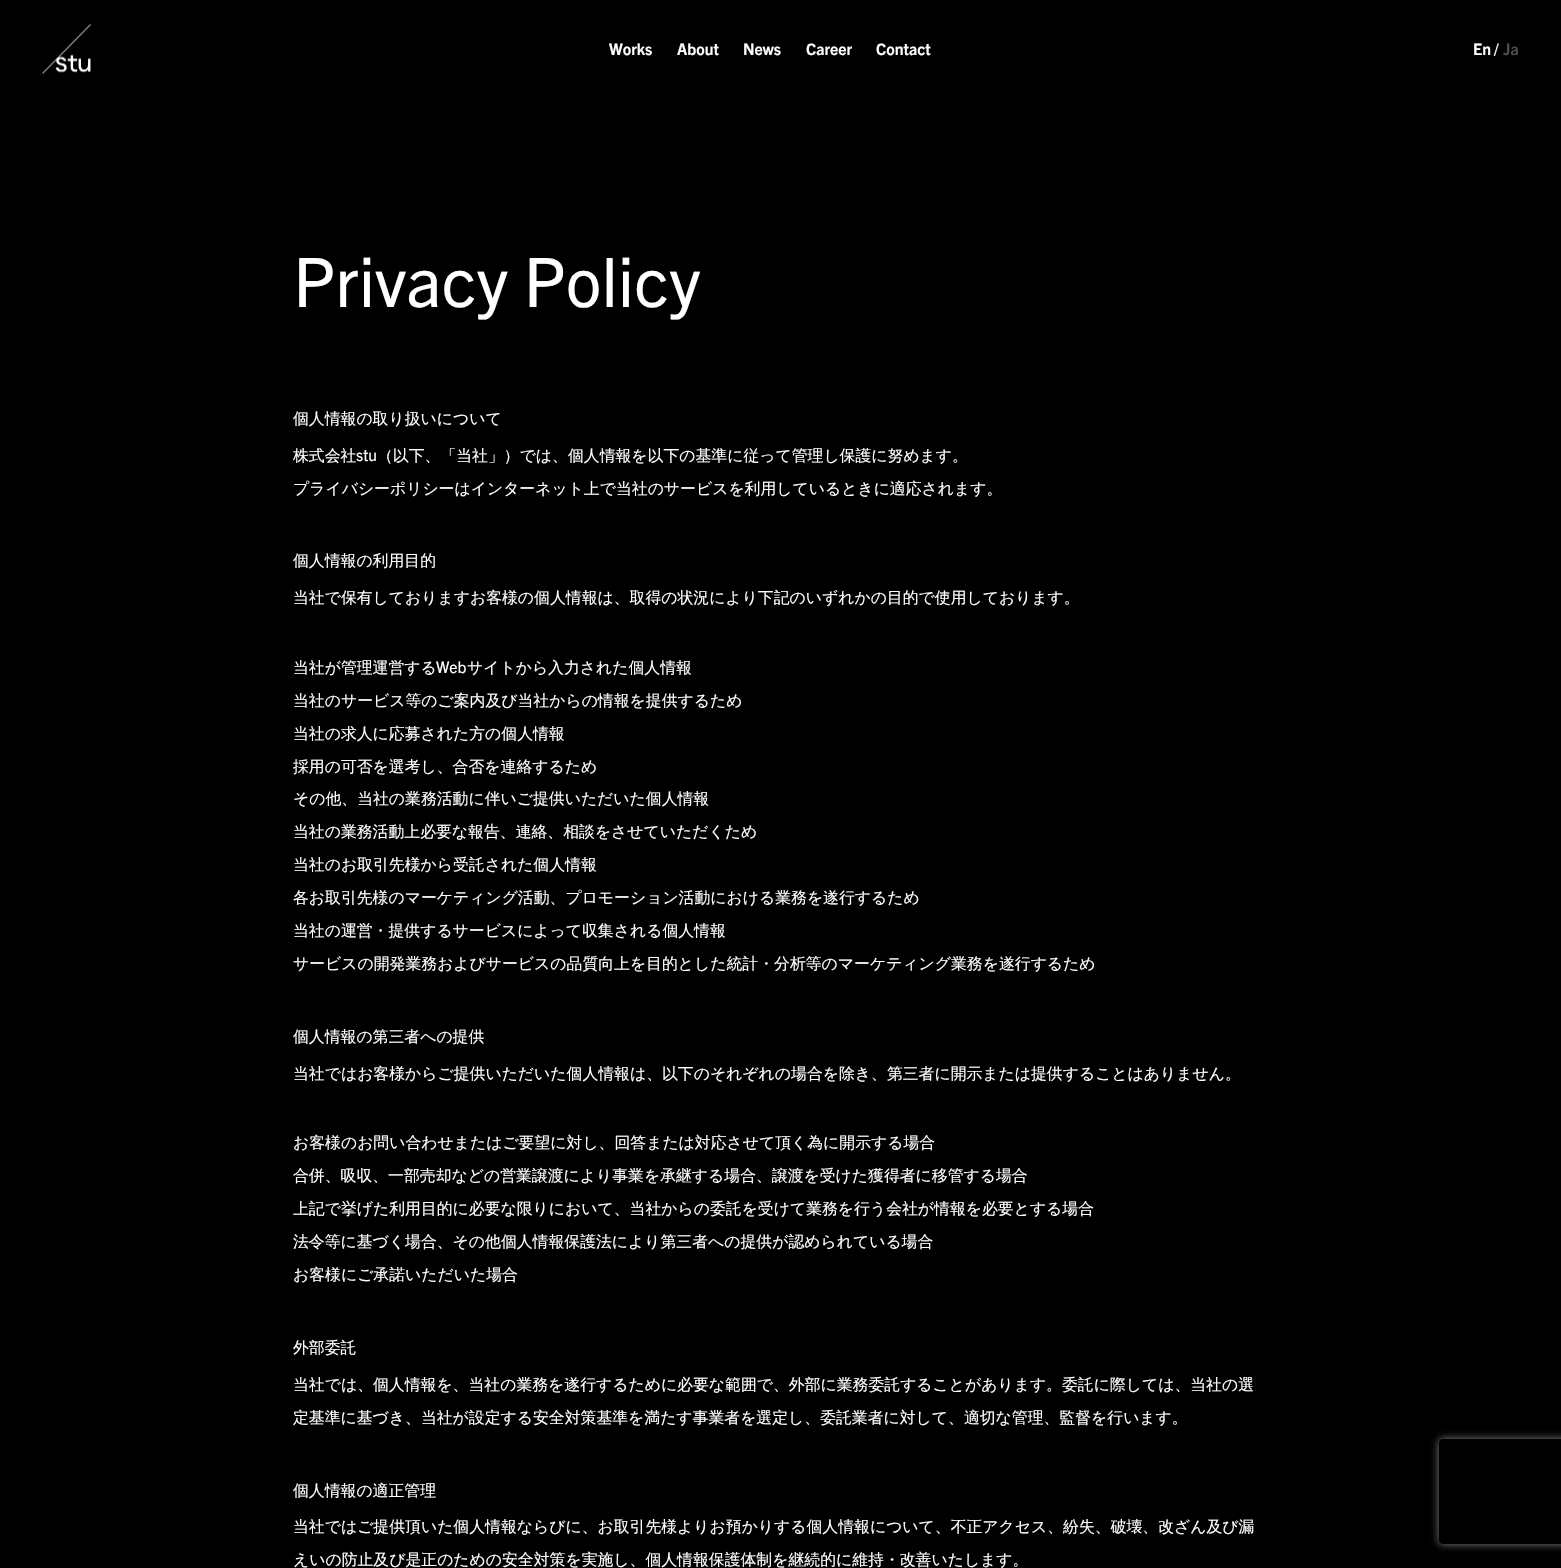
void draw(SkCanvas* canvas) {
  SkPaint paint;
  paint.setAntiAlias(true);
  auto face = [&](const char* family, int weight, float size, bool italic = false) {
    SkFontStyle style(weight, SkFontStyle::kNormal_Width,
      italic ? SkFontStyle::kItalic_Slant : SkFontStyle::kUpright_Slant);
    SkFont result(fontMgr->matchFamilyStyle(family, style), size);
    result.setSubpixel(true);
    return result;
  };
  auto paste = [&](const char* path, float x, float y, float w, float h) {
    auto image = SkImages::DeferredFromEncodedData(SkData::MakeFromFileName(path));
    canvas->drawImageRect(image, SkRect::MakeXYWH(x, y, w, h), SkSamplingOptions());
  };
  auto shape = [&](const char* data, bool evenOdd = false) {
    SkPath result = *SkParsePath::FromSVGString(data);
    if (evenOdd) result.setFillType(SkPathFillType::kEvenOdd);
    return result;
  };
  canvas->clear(0xff000000);
  paste("img/1.png", 42, 24, 49, 50);
  canvas->save();
  canvas->clipPath(shape("M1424 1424H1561V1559H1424ZM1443 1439H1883C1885 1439 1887 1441 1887 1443V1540C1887 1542 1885 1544 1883 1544H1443C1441 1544 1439 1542 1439 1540V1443C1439 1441 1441 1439 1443 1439Z", true), true);
  paint.setColor(0xff808080);
  paint.setMaskFilter(SkMaskFilter::MakeBlur(kNormal_SkBlurStyle, 4.5f));
  canvas->drawRoundRect(SkRect::MakeXYWH(1439, 1439, 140, 105), 4, 4, paint);
  paint.setMaskFilter(nullptr);
  canvas->restore();
  auto f0 = face("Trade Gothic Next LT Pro", 700, 15.85f);
  paint.setColor(0xffffffff);
  {
    const struct { const char* s; float x, y; } items[] = {
      {"Works", 609, 55},
      {"About", 677, 55},
      {"News", 743, 55},
      {"Career", 806, 55},
      {"Contact", 876, 55},
      {"En", 1473, 55},
      {"/", 1494, 55},
    };
    for (auto [s, x, y] : items) {
      canvas->drawString(s, x, y, f0, paint);
    }
  }
  paint.setColor(0xff4d4d4d);
  canvas->drawString("Ja", 1503, 55, f0, paint);
  auto f1 = face("Trade Gothic Next LT Pro", 400, 68.25f);
  paint.setColor(0xffffffff);
  canvas->drawString("Privacy Policy", 293, 307, f1, paint);
  auto f2 = face("WenQuanYi Zen Hei", 500, 15.85f);
  canvas->drawString("個人情報の取り扱いについて", 293, 424, f2, paint);
  canvas->drawString("株式会社", 293, 461, f2, paint);
  auto f3 = face("Trade Gothic Next LT Pro", 400, 15.85f);
  canvas->drawString("stu", 356, 461, f3, paint);
  {
    const struct { const char* s; float x, y; } items[] = {
      {"（以下、「当社」）では、個人情報を以下の基準に従って管理し保護に努めます。", 377, 461},
      {"プライバシーポリシーはインターネット上で当社のサービスを利用しているときに適応されます。", 293, 494},
      {"個人情報の利用目的", 293, 566},
      {"当社で保有しておりますお客様の個人情報は、取得の状況により下記のいずれかの目的で使用しております。", 293, 603},
      {"当社が管理運営する", 293, 673},
    };
    for (auto [s, x, y] : items) {
      canvas->drawString(s, x, y, f2, paint);
    }
  }
  canvas->drawString("Web", 436, 673, f3, paint);
  {
    const struct { const char* s; float x, y; } items[] = {
      {"サイトから入力された個人情報", 467, 673},
      {"当社のサービス等のご案内及び当社からの情報を提供するため", 293, 706},
      {"当社の求人に応募された方の個人情報", 293, 739},
      {"採用の可否を選考し、合否を連絡するため", 293, 772},
      {"その他、当社の業務活動に伴いご提供いただいた個人情報", 293, 804},
      {"当社の業務活動上必要な報告、連絡、相談をさせていただくため", 293, 837},
      {"当社のお取引先様から受託された個人情報", 293, 870},
      {"各お取引先様のマーケティング活動、プロモーション活動における業務を遂行するため", 293, 903},
      {"当社の運営・提供するサービスによって収集される個人情報", 293, 936},
      {"サービスの開発業務およびサービスの品質向上を目的とした統計・分析等のマーケティング業務を遂行するため", 293, 969},
      {"個人情報の第三者への提供", 293, 1042},
      {"当社ではお客様からご提供いただいた個人情報は、以下のそれぞれの場合を除き、第三者に開示または提供することはありません。", 293, 1079},
      {"お客様のお問い合わせまたはご要望に対し、回答または対応させて頂く為に開示する場合", 293, 1148},
      {"合併、吸収、一部売却などの営業譲渡により事業を承継する場合、譲渡を受けた獲得者に移管する場合", 293, 1181},
      {"上記で挙げた利用目的に必要な限りにおいて、当社からの委託を受けて業務を行う会社が情報を必要とする場合", 293, 1214},
      {"法令等に基づく場合、その他個人情報保護法により第三者への提供が認められている場合", 293, 1247},
      {"お客様にご承諾いただいた場合", 293, 1280},
      {"外部委託", 293, 1353},
      {"当社では、個人情報を、当社の業務を遂行するために必要な範囲で、外部に業務委託することがあります。委託に際しては、当社の選", 293, 1390},
      {"定基準に基づき、当社が設定する安全対策基準を満たす事業者を選定し、委託業者に対して、適切な管理、監督を行います。", 293, 1423},
      {"個人情報の適正管理", 293, 1496},
      {"当社ではご提供頂いた個人情報ならびに、お取引先様よりお預かりする個人情報について、不正アクセス、紛失、破壊、改ざん及び漏", 293, 1532},
      {"えいの防止及び是正のための安全対策を実施し、個人情報保護体制を継続的に維持・改善いたします。", 293, 1565},
    };
    for (auto [s, x, y] : items) {
      canvas->drawString(s, x, y, f2, paint);
    }
  }
}
